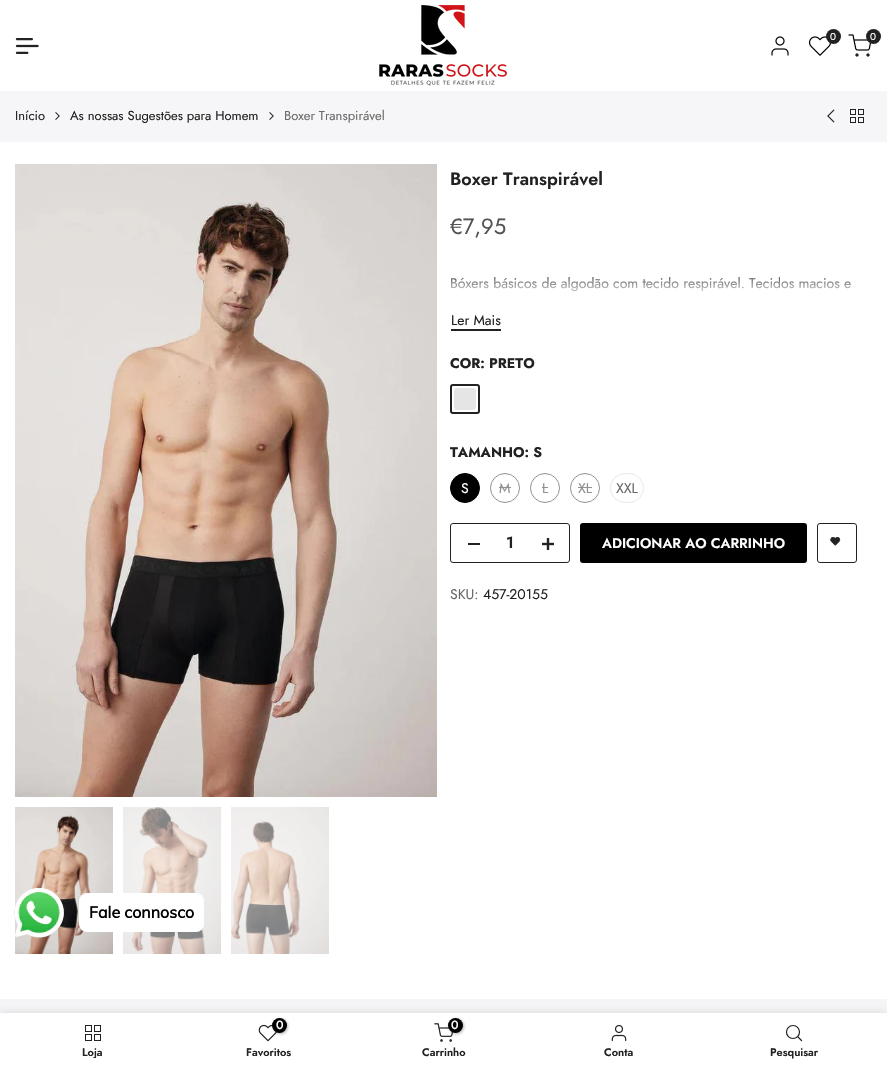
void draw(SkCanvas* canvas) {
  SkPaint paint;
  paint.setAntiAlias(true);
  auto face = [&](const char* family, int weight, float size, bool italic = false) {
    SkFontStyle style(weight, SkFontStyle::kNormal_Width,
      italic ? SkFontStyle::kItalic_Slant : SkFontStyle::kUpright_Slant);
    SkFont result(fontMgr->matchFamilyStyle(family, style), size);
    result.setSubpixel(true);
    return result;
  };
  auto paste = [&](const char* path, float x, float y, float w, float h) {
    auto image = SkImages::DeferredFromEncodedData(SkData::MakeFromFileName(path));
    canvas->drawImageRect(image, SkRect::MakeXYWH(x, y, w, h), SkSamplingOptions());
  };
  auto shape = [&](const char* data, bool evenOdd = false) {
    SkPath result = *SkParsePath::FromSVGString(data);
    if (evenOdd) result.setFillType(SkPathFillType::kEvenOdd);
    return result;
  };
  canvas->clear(0xffffffff);
  paste("img/1.png", 379, 5, 128, 81);
  paste("img/2.png", 771, 36, 18, 20);
  paste("img/3.png", 808, 36, 23, 20);
  paint.setColor(0xff222222);
  canvas->drawCircle(833.5f, 36.5f, 7.5f, paint);
  paste("img/4.png", 848, 34, 23, 23);
  canvas->drawCircle(873.5f, 36.5f, 7.5f, paint);
  paste("img/5.png", 15, 38, 24, 16);
  paint.setColor(0xfff6f6f8);
  canvas->drawRect(SkRect::MakeXYWH(0, 91, 887, 51), paint);
  paste("img/6.png", 55, 112, 5, 8);
  paste("img/6.png", 269, 112, 5, 8);
  paste("img/7.png", 827, 109, 8, 14);
  paste("img/8.png", 850, 109, 14, 14);
  paste("img/9.png", 15, 164, 422, 633);
  paint.setColor(0x1cd0d0d0);
  canvas->drawRect(SkRect::MakeXYWH(436, 791, 1, 6), paint);
  paste("img/10.png", 15, 807, 98, 147);
  paste("img/11.png", 123, 807, 98, 147);
  paste("img/12.png", 231, 807, 98, 147);
  paint.setColor(0xff222222);
  canvas->drawRect(SkRect::MakeXYWH(451, 329, 50, 2), paint);
  paint.setStroke(true);
  paint.setStrokeWidth(2);
  canvas->drawRoundRect(SkRect::MakeXYWH(451, 385, 28, 28), 2, 2, paint);
  paint.setStroke(false);
  paint.setColor(0xffe5e5e5);
  canvas->drawRoundRect(SkRect::MakeXYWH(454, 388, 22, 22), 3, 3, paint);
  paint.setColor(0xff000000);
  canvas->drawCircle(465, 488, 14.5f, paint);
  paint.setStroke(true);
  paint.setStrokeWidth(1);
  canvas->drawCircle(465, 488, 14.5f, paint);
  paint.setColor(0xff919191);
  canvas->drawCircle(505, 488, 14.5f, paint);
  paint.setStroke(false);
  canvas->drawRect(SkRect::MakeXYWH(499, 487, 12, 1), paint);
  paint.setStroke(true);
  canvas->drawCircle(545, 488, 14.5f, paint);
  paint.setStroke(false);
  canvas->drawRect(SkRect::MakeXYWH(542, 487, 6, 1), paint);
  paint.setStroke(true);
  canvas->drawCircle(585, 488, 14.5f, paint);
  paint.setStroke(false);
  canvas->drawRect(SkRect::MakeXYWH(578, 487, 14, 1), paint);
  paint.setStroke(true);
  paint.setColor(0xffe9e9e9);
  canvas->drawRoundRect(SkRect::MakeXYWH(610.5f, 473.5f, 33, 29), 14.5f, 14.5f, paint);
  paint.setColor(0xff222222);
  canvas->drawRoundRect(SkRect::MakeXYWH(450.5f, 523.5f, 119, 39), 2.5f, 2.5f, paint);
  paint.setStroke(false);
  canvas->drawRect(SkRect::MakeXYWH(468, 543, 12, 2), paint);
  paste("img/13.png", 542, 538, 12, 12);
  paint.setColor(0xff000000);
  canvas->drawRoundRect(SkRect::MakeXYWH(581, 524, 225, 38), 2, 2, paint);
  paint.setStroke(true);
  paint.setStrokeWidth(2);
  canvas->drawRoundRect(SkRect::MakeXYWH(581, 524, 225, 38), 2, 2, paint);
  paint.setStrokeWidth(1);
  paint.setColor(0xff222222);
  canvas->drawRoundRect(SkRect::MakeXYWH(817.5f, 523.5f, 39, 39), 2.5f, 2.5f, paint);
  paste("img/14.png", 830, 537, 11, 9);
  paint.setStroke(false);
  paint.setColor(0xfff6f6f8);
  canvas->drawRect(SkRect::MakeXYWH(0, 999, 887, 14), paint);
  paste("img/15.png", 14, 888, 50, 50);
  paint.setColor(0xffffffff);
  canvas->drawRoundRect(SkRect::MakeXYWH(79, 893, 125, 39), 8, 8, paint);
  paint.setColor(0x1f000000);
  paint.setMaskFilter(SkMaskFilter::MakeBlur(kNormal_SkBlurStyle, 4.5f));
  canvas->drawRect(SkRect::MakeXYWH(0, 1013, 887, 55), paint);
  paint.setMaskFilter(nullptr);
  paint.setColor(0xffffffff);
  canvas->drawRect(SkRect::MakeXYWH(0, 1013, 887, 55), paint);
  paste("img/16.png", 85, 1025, 16, 16);
  paste("img/17.png", 258, 1024, 19, 18);
  paint.setColor(0x4d000000);
  paint.setMaskFilter(SkMaskFilter::MakeBlur(kNormal_SkBlurStyle, 1.5f));
  canvas->drawRoundRect(SkRect::MakeXYWH(273, 1019, 15, 15), 7.5f, 7.5f, paint);
  paint.setMaskFilter(nullptr);
  paint.setColor(0xff000000);
  canvas->drawCircle(279.5f, 1025.5f, 7.5f, paint);
  paste("img/18.png", 434, 1023, 19, 19);
  paint.setColor(0x4d000000);
  paint.setMaskFilter(SkMaskFilter::MakeBlur(kNormal_SkBlurStyle, 1.5f));
  canvas->drawRoundRect(SkRect::MakeXYWH(449, 1019, 15, 15), 7.5f, 7.5f, paint);
  paint.setMaskFilter(nullptr);
  paint.setColor(0xff000000);
  canvas->drawCircle(455.5f, 1025.5f, 7.5f, paint);
  paste("img/19.png", 611, 1024, 16, 18);
  paint.setStroke(true);
  paint.setStrokeWidth(1.2f);
  paint.setColor(0xff222222);
  canvas->drawCircle(793, 1032, 6.5f, paint);
  paint.setStrokeCap(SkPaint::kRound_Cap);
  paint.setStrokeJoin(SkPaint::kRound_Join);
  canvas->drawPath(shape("M801.5 1040.5L798 1037"), paint);
  auto f0 = face("Jost", 400, 10);
  paint.setStroke(false);
  paint.setColor(0xffffffff);
  canvas->drawString("0", 830, 40, f0, paint);
  canvas->drawString("0", 870, 40, f0, paint);
  auto f1 = face("Jost", 400, 13);
  paint.setColor(0xff222222);
  canvas->drawString("Início", 15, 120, f1, paint);
  canvas->drawString("As nossas Sugestões para Homem", 70, 120, f1, paint);
  paint.setColor(0xff696969);
  canvas->drawString("Boxer Transpirável", 284, 120, f1, paint);
  auto f2 = face("Jost", 600, 18);
  paint.setColor(0xff222222);
  canvas->drawString("Boxer Transpirável", 450, 185, f2, paint);
  auto f3 = face("Jost", 400, 22);
  paint.setColor(0xff545454);
  canvas->drawString("€7,95", 450, 234, f3, paint);
  auto f4 = face("Jost", 400, 14);
  paint.setColor(0xff696969);
  canvas->drawString("Bóxers básicos de algodão com tecido respirável. Tecidos macios e", 450, 288, f4, paint);
  {
    const SkColor colors[] = {0x80ffffff, 0x00ffffff};
    const float stops[] = {0.6f, 1};
    const SkPoint ends[] = {{661, 302}, {661, 279}};
    paint.setShader(SkGradientShader::MakeLinear(ends, colors, stops, 2, SkTileMode::kClamp));
    paint.setAlpha(255);
  }
  canvas->drawRect(SkRect::MakeXYWH(451, 279, 400, 13), paint);
  paint.setShader(nullptr);
  paint.setColor(0xff222222);
  canvas->drawString("Ler Mais", 451, 325, f4, paint);
  auto f5 = face("Jost", 700, 14);
  canvas->drawString("COR: PRETO", 450, 368, f5, paint);
  canvas->drawString("TAMANHO: S", 450, 457, f5, paint);
  paint.setColor(0xffffffff);
  canvas->drawString("S", 461, 493, f4, paint);
  paint.setColor(0xff919191);
  {
    const struct { const char* s; float x, y; } items[] = {
      {"M", 499, 493},
      {"L", 542, 493},
      {"XL", 578, 493},
    };
    for (auto [s, x, y] : items) {
      canvas->drawString(s, x, y, f4, paint);
    }
  }
  paint.setColor(0xff696969);
  canvas->drawString("XXL", 616, 493, f4, paint);
  auto f6 = face("Jost", 600, 16);
  paint.setColor(0xff222222);
  canvas->drawString("1", 506, 548, f6, paint);
  auto f7 = face("Jost", 600, 14);
  paint.setColor(0xffffffff);
  canvas->drawString("ADICIONAR AO CARRINHO", 602, 548, f7, paint);
  paint.setColor(0xff696969);
  canvas->drawString("SKU:", 450, 599, f4, paint);
  paint.setColor(0xff222222);
  canvas->drawString("457-20155", 483, 599, f4, paint);
  auto f8 = face("Muli", 700, 16);
  paint.setColor(0xff000000);
  canvas->drawString("Fale connosco", 89, 918, f8, paint);
  canvas->save();
  canvas->clipRect(SkRect::MakeXYWH(15, 1047, 155, 11));
  auto f9 = face("Jost", 600, 11);
  paint.setColor(0xff222222);
  canvas->drawString("Loja", 82, 1056, f9, paint);
  canvas->restore();
  auto f10 = face("Jost", 500, 12);
  paint.setColor(0xffffffff);
  canvas->drawString("0", 276, 1029, f10, paint);
  paint.setColor(0xff222222);
  canvas->drawString("Favoritos", 246, 1056, f9, paint);
  paint.setColor(0xffffffff);
  canvas->drawString("0", 451, 1029, f10, paint);
  paint.setColor(0xff222222);
  {
    const struct { const char* s; float x, y; } items[] = {
      {"Carrinho", 422, 1056},
      {"Conta", 604, 1056},
      {"Pesquisar", 770, 1056},
    };
    for (auto [s, x, y] : items) {
      canvas->drawString(s, x, y, f9, paint);
    }
  }
}
